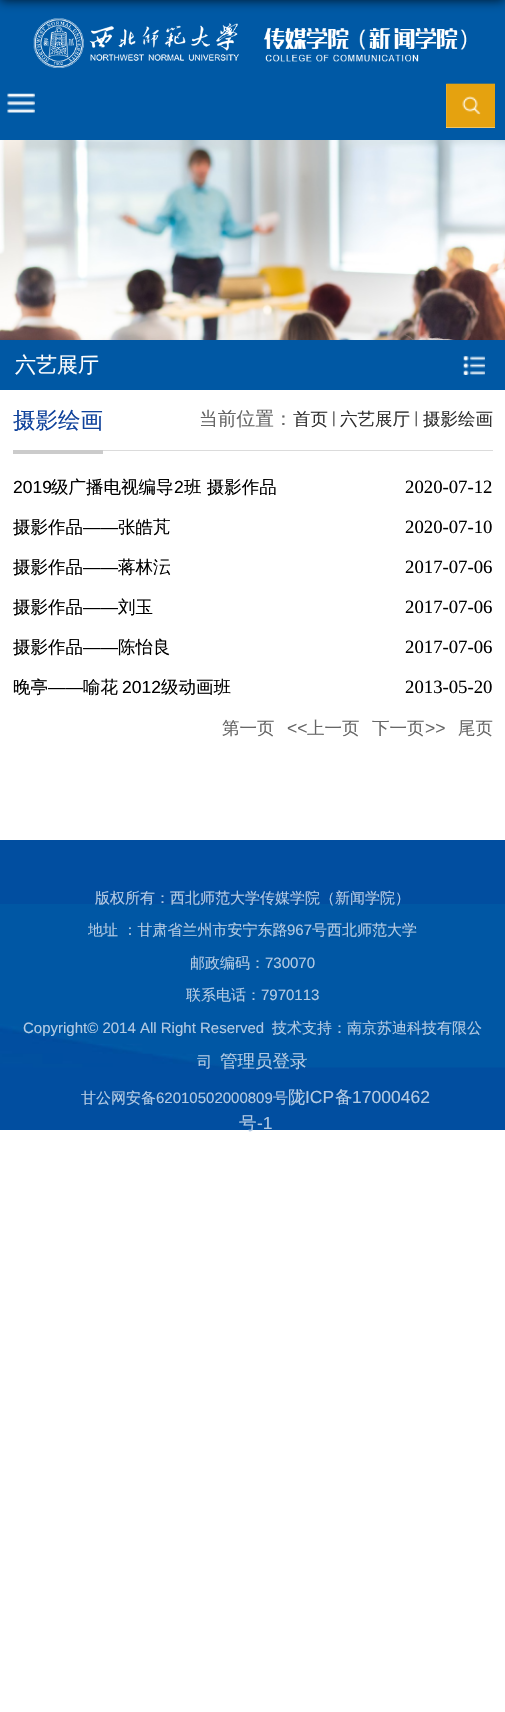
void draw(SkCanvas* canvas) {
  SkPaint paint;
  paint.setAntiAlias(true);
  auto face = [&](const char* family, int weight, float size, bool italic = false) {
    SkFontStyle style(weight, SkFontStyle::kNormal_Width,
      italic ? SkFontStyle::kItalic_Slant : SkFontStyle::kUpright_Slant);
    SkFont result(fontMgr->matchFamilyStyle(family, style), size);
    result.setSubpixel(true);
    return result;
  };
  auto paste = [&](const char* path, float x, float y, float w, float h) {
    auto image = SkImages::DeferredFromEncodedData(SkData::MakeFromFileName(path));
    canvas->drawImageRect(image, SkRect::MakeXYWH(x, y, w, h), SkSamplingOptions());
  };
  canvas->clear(0xffffffff);
  paint.setColor(0xff0059a5);
  canvas->drawRect(SkRect::MakeXYWH(0, 0, 505, 140), paint);
  paste("img/1.png", 33, 18, 434, 50);
  paste("img/2.png", 7, 93, 28, 20);
  paint.setColor(0xffffffff);
  canvas->drawRect(SkRect::MakeXYWH(446, 84, 49, 44), paint);
  paste("img/3.png", 446, 83, 49, 45);
  paste("img/4.png", 446, 83, 49, 45);
  paint.setColor(0xcc000000);
  paint.setMaskFilter(SkMaskFilter::MakeBlur(kNormal_SkBlurStyle, 6));
  canvas->drawRect(SkRect::MakeXYWH(0, -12, 505, 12), paint);
  paint.setMaskFilter(nullptr);
  paste("img/5.png", 0, 140, 505, 200);
  paint.setColor(0xff0058a4);
  canvas->drawRect(SkRect::MakeXYWH(0, 340, 505, 50), paint);
  paste("img/6.png", 463, 356, 22, 19);
  paint.setColor(0xffdbdbdb);
  canvas->drawRect(SkRect::MakeXYWH(103, 450, 390, 1), paint);
  paint.setColor(0xffcbcbcb);
  canvas->drawRect(SkRect::MakeXYWH(13, 450, 90, 4), paint);
  paste("img/7.png", 333, 411, 2, 16);
  paste("img/8.png", 415, 411, 2, 16);
  paint.setColor(0xff014ea0);
  canvas->drawRect(SkRect::MakeXYWH(0, 840, 505, 290), paint);
  paste("img/9.png", 0, 904, 505, 164);
  auto f0 = face("WenQuanYi Zen Hei", 500, 21);
  paint.setColor(0xffffffff);
  canvas->drawString("六艺展厅", 15, 372, f0, paint);
  auto f1 = face("WenQuanYi Zen Hei", 500, 22.5f);
  paint.setColor(0xff0f429b);
  canvas->drawString("摄影绘画", 13, 428, f1, paint);
  auto f2 = face("WenQuanYi Zen Hei", 500, 18.75f);
  paint.setColor(0xff666666);
  canvas->drawString("当前位置：", 199, 425, f2, paint);
  auto f3 = face("WenQuanYi Zen Hei", 500, 17.5f);
  paint.setColor(0xff2f2f2f);
  {
    const struct { const char* s; float x, y; } items[] = {
      {"首页", 293, 425},
      {"六艺展厅", 340, 425},
      {"摄影绘画", 423, 425},
    };
    for (auto [s, x, y] : items) {
      canvas->drawString(s, x, y, f3, paint);
    }
  }
  auto f4 = face("Liberation Sans", 400, 17.5f);
  paint.setColor(0xff000000);
  canvas->drawString("2019", 13, 493, f4, paint);
  canvas->drawString("级广播电视编导", 51, 493, f3, paint);
  canvas->drawString("2", 174, 493, f4, paint);
  canvas->drawString("班 摄影作品", 184, 493, f3, paint);
  auto f5 = face("Liberation Serif", 400, 18.75f);
  canvas->drawString("2020-07-12", 405, 493, f5, paint);
  canvas->drawString("摄影作品", 13, 533, f3, paint);
  canvas->drawString("——", 83, 533, f4, paint);
  canvas->drawString("张皓芃", 118, 533, f3, paint);
  canvas->drawString("2020-07-10", 405, 533, f5, paint);
  canvas->drawString("摄影作品", 13, 573, f3, paint);
  canvas->drawString("——", 83, 573, f4, paint);
  canvas->drawString("蒋林沄", 118, 573, f3, paint);
  canvas->drawString("2017-07-06", 405, 573, f5, paint);
  canvas->drawString("摄影作品", 13, 613, f3, paint);
  canvas->drawString("——", 83, 613, f4, paint);
  canvas->drawString("刘玉", 118, 613, f3, paint);
  canvas->drawString("2017-07-06", 405, 613, f5, paint);
  canvas->drawString("摄影作品", 13, 653, f3, paint);
  canvas->drawString("——", 83, 653, f4, paint);
  canvas->drawString("陈怡良", 118, 653, f3, paint);
  canvas->drawString("2017-07-06", 405, 653, f5, paint);
  canvas->drawString("晚亭", 13, 693, f3, paint);
  canvas->drawString("——", 48, 693, f4, paint);
  canvas->drawString("喻花", 83, 693, f3, paint);
  canvas->drawString("2012", 122, 693, f4, paint);
  canvas->drawString("级动画班", 161, 693, f3, paint);
  canvas->drawString("2013-05-20", 405, 693, f5, paint);
  paint.setColor(0xff666666);
  canvas->drawString("第一页", 222, 734, f3, paint);
  canvas->drawString("<<", 287, 734, f4, paint);
  canvas->drawString("上一页", 307, 734, f3, paint);
  canvas->drawString("下一页", 372, 734, f3, paint);
  canvas->drawString(">>", 425, 734, f4, paint);
  canvas->drawString("尾页", 458, 734, f3, paint);
  auto f6 = face("WenQuanYi Zen Hei", 500, 15);
  paint.setColor(0xffb3cae3);
  canvas->drawString("版权所有：西北师范大学传媒学院（新闻学院）", 95, 903, f6, paint);
  canvas->drawString("地址 ：甘肃省兰州市安宁东路", 88, 935, f6, paint);
  auto f7 = face("Liberation Sans", 400, 15);
  canvas->drawString("967", 287, 935, f7, paint);
  canvas->drawString("号西北师范大学", 312, 935, f6, paint);
  canvas->drawString("邮政编码：", 190, 968, f6, paint);
  canvas->drawString("730070", 265, 968, f7, paint);
  canvas->drawString("联系电话：", 186, 1000, f6, paint);
  canvas->drawString("7970113", 261, 1000, f7, paint);
  canvas->drawString("Copyright© 2014 All Right Reserved", 23, 1033, f7, paint);
  canvas->drawString("技术支持：南京苏迪科技有限公", 272, 1033, f6, paint);
  canvas->drawString("司", 197, 1067, f6, paint);
  canvas->drawString("管理员登录", 220, 1067, f3, paint);
  canvas->drawString("甘公网安备", 81, 1103, f6, paint);
  canvas->drawString("62010502000809", 156, 1103, f7, paint);
  canvas->drawString("号", 273, 1103, f6, paint);
  canvas->drawString("陇", 288, 1103, f3, paint);
  canvas->drawString("ICP", 305, 1103, f4, paint);
  canvas->drawString("备", 335, 1103, f3, paint);
  canvas->drawString("17000462", 352, 1103, f4, paint);
  canvas->drawString("号", 239, 1129, f3, paint);
  canvas->drawString("-1", 257, 1129, f4, paint);
}
